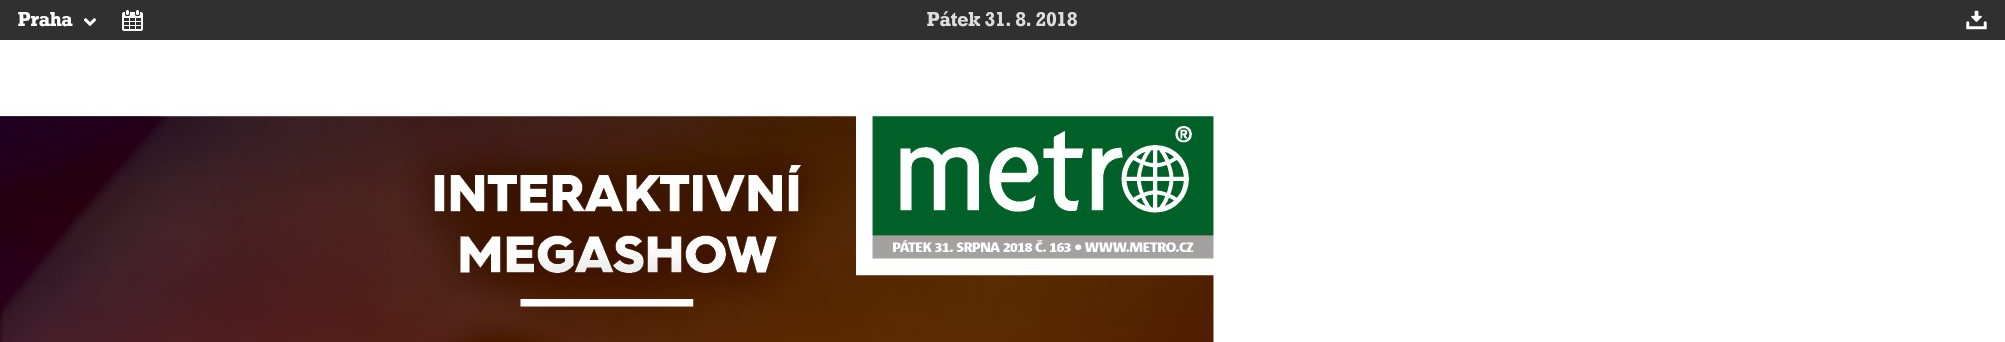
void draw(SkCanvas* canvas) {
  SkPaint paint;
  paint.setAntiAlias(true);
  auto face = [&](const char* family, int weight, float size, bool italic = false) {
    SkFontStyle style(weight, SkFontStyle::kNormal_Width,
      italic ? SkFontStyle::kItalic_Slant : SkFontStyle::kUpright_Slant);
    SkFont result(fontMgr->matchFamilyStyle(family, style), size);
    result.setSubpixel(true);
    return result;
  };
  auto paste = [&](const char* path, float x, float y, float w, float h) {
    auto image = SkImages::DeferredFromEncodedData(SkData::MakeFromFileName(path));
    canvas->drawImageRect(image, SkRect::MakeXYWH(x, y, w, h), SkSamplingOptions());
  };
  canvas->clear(0xffffffff);
  paint.setColor(0xff303030);
  canvas->drawRect(SkRect::MakeXYWH(0, 0, 2005, 40), paint);
  paste("img/1.png", 84, 18, 12, 8);
  paste("img/2.png", 122, 10, 21, 21);
  paste("img/3.png", 1966, 10, 21, 20);
  paste("img/4.png", 0, 105, 1216, 237);
  auto f0 = face("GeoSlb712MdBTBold", 700, 20);
  paint.setColor(0xffffffff);
  canvas->drawString("Praha", 18, 26, f0, paint);
  paint.setColor(0xffdddddd);
  canvas->drawString("Pátek 31. 8. 2018", 927, 26, f0, paint);
}
